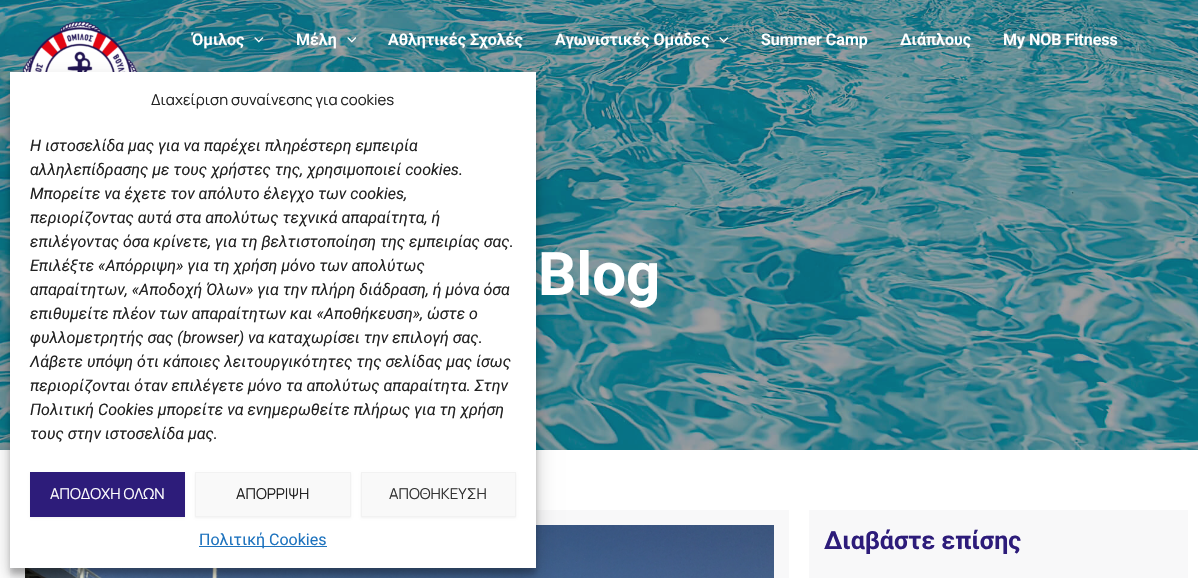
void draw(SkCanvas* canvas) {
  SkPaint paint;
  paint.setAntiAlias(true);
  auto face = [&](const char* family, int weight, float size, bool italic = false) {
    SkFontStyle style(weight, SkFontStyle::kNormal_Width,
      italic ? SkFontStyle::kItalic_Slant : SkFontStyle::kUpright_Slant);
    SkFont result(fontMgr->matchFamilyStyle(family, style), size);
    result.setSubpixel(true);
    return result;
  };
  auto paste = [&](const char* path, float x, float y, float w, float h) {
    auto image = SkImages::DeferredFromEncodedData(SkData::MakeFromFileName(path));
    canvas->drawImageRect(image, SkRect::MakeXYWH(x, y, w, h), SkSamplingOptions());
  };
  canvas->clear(0xffffffff);
  paste("img/5.png", 0, 0, 1198, 450);
  paste("img/1.png", 22, 21, 116, 51);
  paste("img/2.png", 254, 37, 10, 6);
  paste("img/3.png", 347, 37, 9, 6);
  paste("img/4.png", 719, 37, 10, 6);
  paint.setColor(0xfff8f8f9);
  canvas->drawRect(SkRect::MakeXYWH(10, 510, 779, 68), paint);
  paste("img/6.png", 25, 525, 749, 53);
  canvas->drawRect(SkRect::MakeXYWH(809, 510, 379, 68), paint);
  paint.setColor(0x3b000000);
  paint.setMaskFilter(SkMaskFilter::MakeBlur(kNormal_SkBlurStyle, 3));
  canvas->drawRect(SkRect::MakeXYWH(10, 78, 526, 496), paint);
  paint.setMaskFilter(nullptr);
  paint.setColor(0x30000000);
  paint.setMaskFilter(SkMaskFilter::MakeBlur(kNormal_SkBlurStyle, 10));
  canvas->drawRect(SkRect::MakeXYWH(10, 82, 526, 496), paint);
  paint.setMaskFilter(nullptr);
  paint.setColor(0xffffffff);
  canvas->drawRect(SkRect::MakeXYWH(10, 72, 526, 496), paint);
  paint.setColor(0x0d000000);
  paint.setMaskFilter(SkMaskFilter::MakeBlur(kNormal_SkBlurStyle, 1));
  canvas->drawRect(SkRect::MakeXYWH(30, 473, 155, 45), paint);
  paint.setMaskFilter(nullptr);
  paint.setColor(0xff2d1c7a);
  canvas->drawRect(SkRect::MakeXYWH(30, 472, 155, 45), paint);
  paint.setColor(0x0d000000);
  paint.setMaskFilter(SkMaskFilter::MakeBlur(kNormal_SkBlurStyle, 1));
  canvas->drawRect(SkRect::MakeXYWH(195, 473, 156, 45), paint);
  paint.setMaskFilter(nullptr);
  paint.setColor(0xfff9f9f9);
  canvas->drawRect(SkRect::MakeXYWH(195.5f, 472.5f, 155, 44), paint);
  paint.setStroke(true);
  paint.setStrokeWidth(1);
  paint.setColor(0xfff2f2f2);
  canvas->drawRect(SkRect::MakeXYWH(195.5f, 472.5f, 155, 44), paint);
  paint.setStroke(false);
  paint.setColor(0x0d000000);
  paint.setMaskFilter(SkMaskFilter::MakeBlur(kNormal_SkBlurStyle, 1));
  canvas->drawRect(SkRect::MakeXYWH(361, 473, 155, 45), paint);
  paint.setMaskFilter(nullptr);
  paint.setColor(0xfff9f9f9);
  canvas->drawRect(SkRect::MakeXYWH(361.5f, 472.5f, 154, 44), paint);
  paint.setStroke(true);
  paint.setColor(0xfff2f2f2);
  canvas->drawRect(SkRect::MakeXYWH(361.5f, 472.5f, 154, 44), paint);
  paint.setStroke(false);
  paint.setColor(0xff1e73be);
  canvas->drawRect(SkRect::MakeXYWH(199, 546, 128, 1), paint);
  auto f0 = face("Roboto", 600, 16);
  paint.setColor(0xffffffff);
  {
    const struct { const char* s; float x, y; } items[] = {
      {"Όμιλος", 192, 45},
      {"Μέλη", 296, 45},
      {"Αθλητικές Σχολές", 388, 45},
      {"Αγωνιστικές Ομάδες", 555, 45},
      {"Summer Camp", 761, 45},
      {"Διάπλους", 900, 45},
      {"My NOB Fitness", 1003, 45},
    };
    for (auto [s, x, y] : items) {
      canvas->drawString(s, x, y, f0, paint);
    }
  }
  auto f1 = face("Roboto", 700, 60);
  canvas->drawString("Blog", 538, 295, f1, paint);
  auto f2 = face("Roboto", 700, 25);
  paint.setColor(0xff2d1c7a);
  canvas->drawString("Διαβάστε επίσης", 824, 549, f2, paint);
  auto f3 = face("Manrope", 200, 15);
  paint.setColor(0xff222222);
  canvas->drawString("Διαχείριση συναίνεσης για cookies", 151, 105, f3, paint);
  auto f4 = face("Roboto", 400, 16, true);
  {
    const struct { const char* s; float x, y; } items[] = {
      {"Η ιστοσελίδα μας για να παρέχει πληρέστερη εμπειρία", 30, 151},
      {"αλληλεπίδρασης με τους χρήστες της, χρησιμοποιεί cookies.", 30, 175},
      {"Μπορείτε να έχετε τον απόλυτο έλεγχο των cookies,", 30, 199},
      {"περιορίζοντας αυτά στα απολύτως τεχνικά απαραίτητα, ή", 30, 223},
      {"επιλέγοντας όσα κρίνετε, για τη βελτιστοποίηση της εμπειρίας σας.", 30, 247},
      {"Επιλέξτε «Απόρριψη» για τη χρήση μόνο των απολύτως", 30, 271},
      {"απαραίτητων, «Αποδοχή Όλων» για την πλήρη διάδραση, ή μόνα όσα", 30, 295},
      {"επιθυμείτε πλέον των απαραίτητων και «Αποθήκευση», ώστε ο", 30, 319},
      {"φυλλομετρητής σας (browser) να καταχωρίσει την επιλογή σας.", 30, 343},
      {"Λάβετε υπόψη ότι κάποιες λειτουργικότητες της σελίδας μας ίσως", 30, 367},
      {"περιορίζονται όταν επιλέγετε μόνο τα απολύτως απαραίτητα. Στην", 30, 391},
      {"Πολιτική Cookies μπορείτε να ενημερωθείτε πλήρως για τη χρήση", 30, 415},
      {"τους στην ιστοσελίδα μας.", 30, 439},
    };
    for (auto [s, x, y] : items) {
      canvas->drawString(s, x, y, f4, paint);
    }
  }
  paint.setColor(0xffffffff);
  canvas->drawString("ΑΠΟΔΟΧΗ ΟΛΩΝ", 50, 499, f3, paint);
  paint.setColor(0xff222222);
  canvas->drawString("ΑΠΟΡΡΙΨΗ", 236, 499, f3, paint);
  paint.setColor(0xff333333);
  canvas->drawString("ΑΠΟΘΗΚΕΥΣΗ", 389, 499, f3, paint);
  auto f5 = face("Roboto", 400, 16);
  paint.setColor(0xff1e73be);
  canvas->drawString("Πολιτική Cookies", 199, 545, f5, paint);
}
